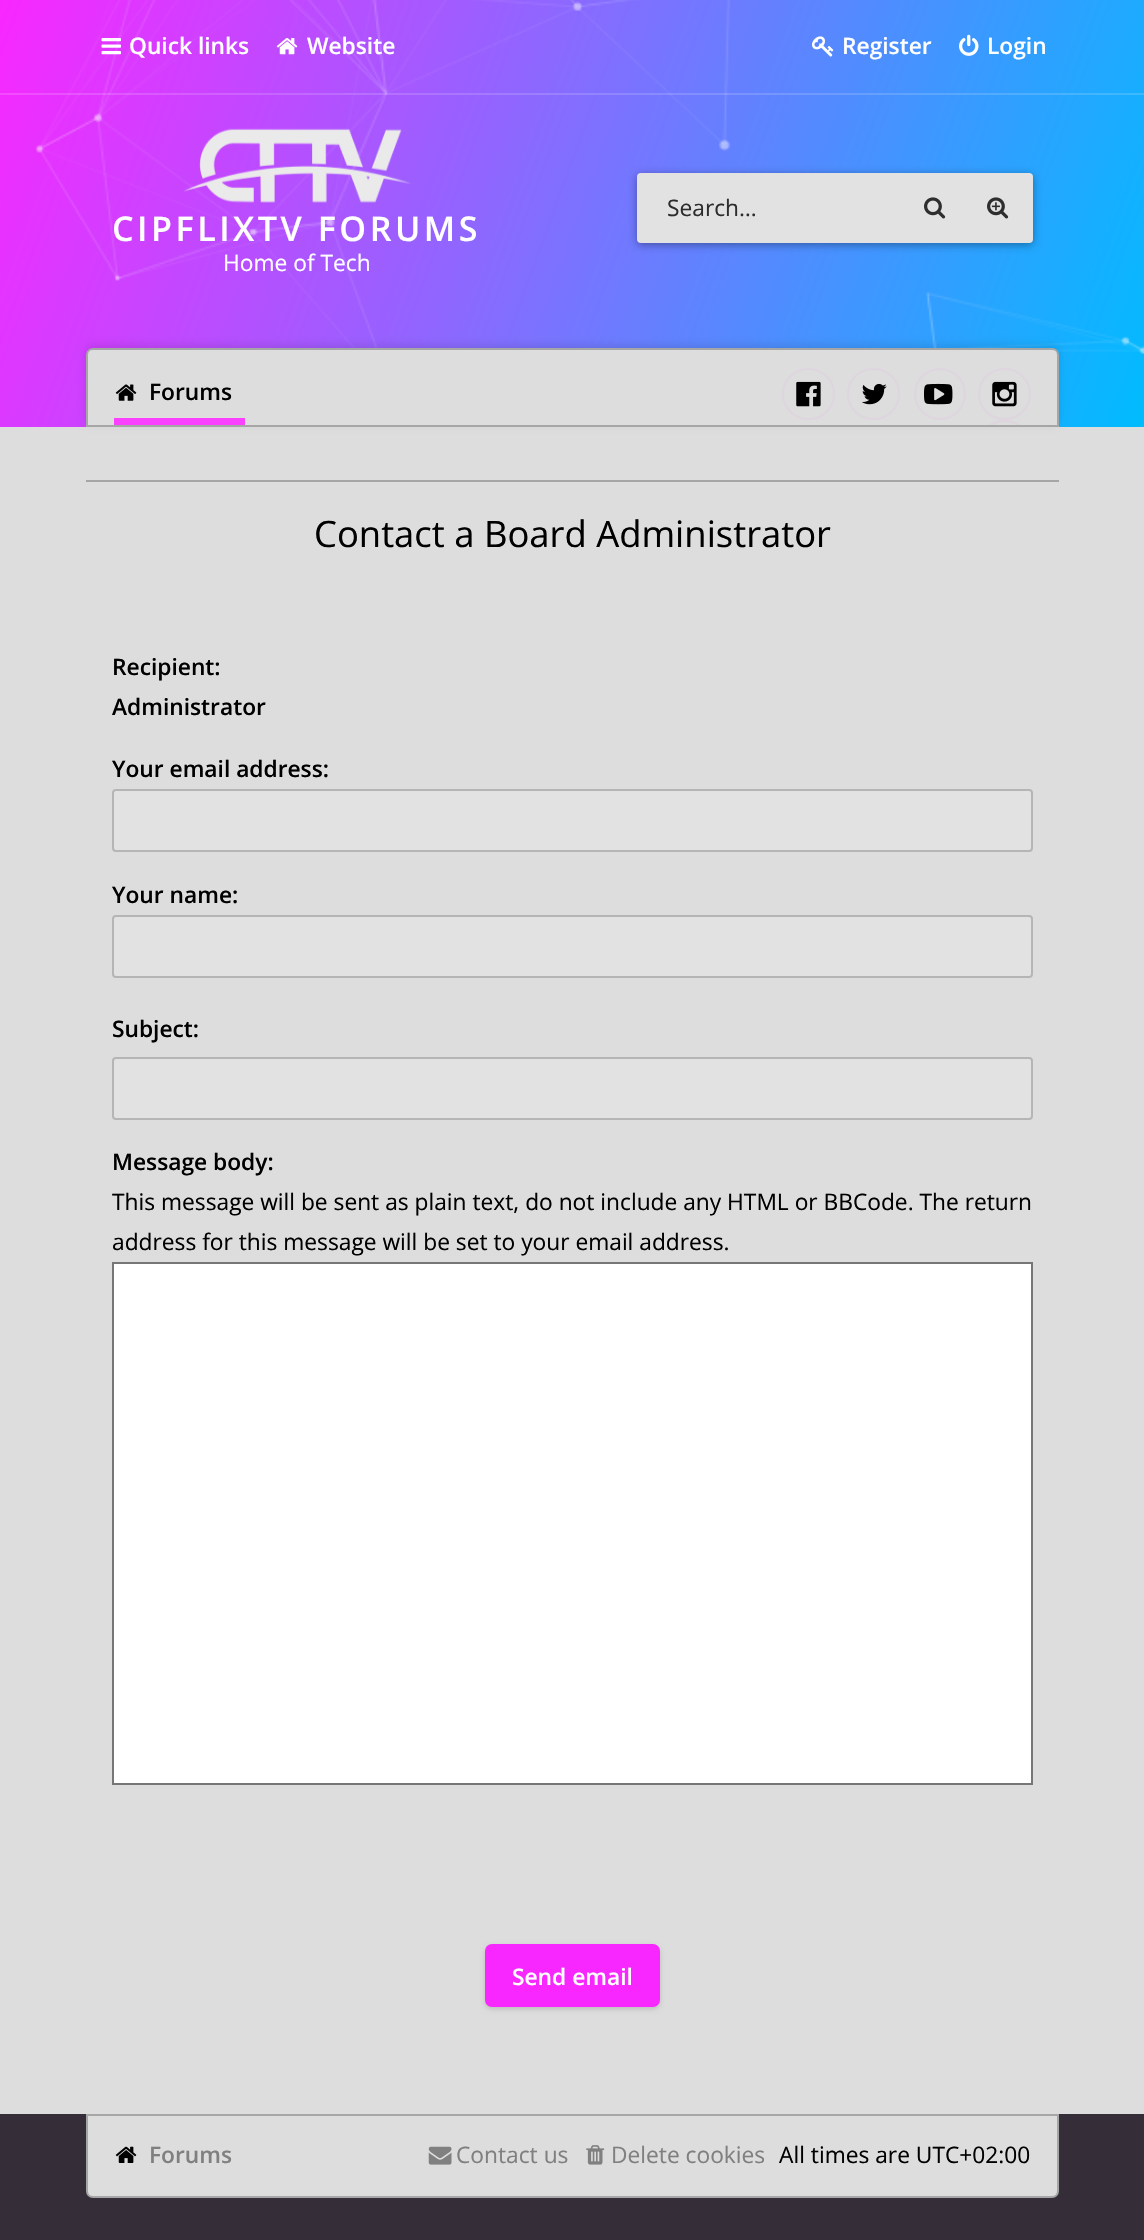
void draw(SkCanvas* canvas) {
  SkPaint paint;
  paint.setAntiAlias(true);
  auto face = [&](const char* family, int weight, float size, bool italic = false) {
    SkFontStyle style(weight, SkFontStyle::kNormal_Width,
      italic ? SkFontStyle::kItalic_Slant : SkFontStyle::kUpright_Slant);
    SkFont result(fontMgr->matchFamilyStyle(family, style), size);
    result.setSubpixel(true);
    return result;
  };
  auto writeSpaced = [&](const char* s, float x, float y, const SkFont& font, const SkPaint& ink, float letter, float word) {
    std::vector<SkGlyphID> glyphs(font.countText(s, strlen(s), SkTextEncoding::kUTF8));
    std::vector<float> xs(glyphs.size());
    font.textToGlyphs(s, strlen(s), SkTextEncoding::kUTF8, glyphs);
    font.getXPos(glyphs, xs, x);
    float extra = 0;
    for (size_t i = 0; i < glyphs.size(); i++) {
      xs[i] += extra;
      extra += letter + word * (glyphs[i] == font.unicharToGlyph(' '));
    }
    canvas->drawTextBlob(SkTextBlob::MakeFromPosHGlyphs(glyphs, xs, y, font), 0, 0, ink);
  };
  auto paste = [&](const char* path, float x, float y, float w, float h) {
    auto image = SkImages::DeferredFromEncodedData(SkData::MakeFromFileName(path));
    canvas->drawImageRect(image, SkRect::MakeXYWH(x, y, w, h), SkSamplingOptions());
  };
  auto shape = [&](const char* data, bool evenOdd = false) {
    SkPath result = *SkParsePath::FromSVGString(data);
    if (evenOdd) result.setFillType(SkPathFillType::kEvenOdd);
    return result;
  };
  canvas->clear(0xffdddddd);
  {
    const SkColor colors[] = {0xfff927ff, 0xff00bcff};
    const float stops[] = {0, 1};
    const SkPoint ends[] = {{-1.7f, 4.6f}, {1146, 422}};
    paint.setShader(SkGradientShader::MakeLinear(ends, colors, stops, 2, SkTileMode::kClamp));
    paint.setAlpha(255);
  }
  canvas->drawRect(SkRect::MakeXYWH(0, 0, 1144, 427), paint);
  paint.setShader(nullptr);
  paint.setColor(0x26ffffff);
  canvas->drawRect(SkRect::MakeXYWH(0, 93, 1144, 2), paint);
  paste("img/5.png", 35, 0, 1109, 354);
  paste("img/1.png", 101, 38, 20, 17);
  paste("img/2.png", 276, 38, 22, 17);
  paste("img/3.png", 812, 36, 22, 21);
  paste("img/4.png", 959, 34, 20, 22);
  paint.setColor(0x59000000);
  paint.setMaskFilter(SkMaskFilter::MakeBlur(kNormal_SkBlurStyle, 4.5f));
  canvas->drawRoundRect(SkRect::MakeXYWH(637, 175, 396, 70), 4, 4, paint);
  paint.setMaskFilter(nullptr);
  paint.setColor(0xffe2e2e2);
  canvas->drawRoundRect(SkRect::MakeXYWH(637, 173, 396, 70), 4, 4, paint);
  paste("img/6.png", 924, 197, 22, 22);
  paste("img/7.png", 987, 197, 22, 22);
  paste("img/8.png", 184, 128, 227, 75);
  paint.setColor(0x1a000000);
  paint.setMaskFilter(SkMaskFilter::MakeBlur(kNormal_SkBlurStyle, 4.5f));
  canvas->drawRoundRect(SkRect::MakeXYWH(86, 345, 973, 79), 7, 7, paint);
  paint.setMaskFilter(nullptr);
  paint.setColor(0xffdddddd);
  canvas->drawPath(shape("M93 349H1052C1055.5 349 1058 351.5 1058 355V426H87V355C87 351.5 89.5 349 93 349Z"), paint);
  paint.setStroke(true);
  paint.setStrokeWidth(2);
  paint.setColor(0xffa6a6a6);
  canvas->drawPath(shape("M93 349H1052C1055.5 349 1058 351.5 1058 355V426H87V355C87 351.5 89.5 349 93 349Z"), paint);
  paste("img/9.png", 115, 384, 22, 17);
  paint.setStroke(false);
  paint.setColor(0xfffa41ff);
  canvas->drawRect(SkRect::MakeXYWH(114, 418, 131, 7), paint);
  paint.setStroke(true);
  paint.setColor(0xffded5df);
  canvas->drawRoundRect(SkRect::MakeXYWH(783, 369, 51, 50), 25, 25, paint);
  paste("img/10.png", 796, 381, 25, 26);
  canvas->drawRoundRect(SkRect::MakeXYWH(848, 369, 51, 50), 25, 25, paint);
  paste("img/11.png", 862, 383, 25, 22);
  canvas->drawCircle(940, 394, 25, paint);
  paste("img/12.png", 924, 383, 29, 22);
  canvas->drawRoundRect(SkRect::MakeXYWH(979, 369, 51, 50), 25, 25, paint);
  paste("img/13.png", 992, 381, 25, 26);
  canvas->save();
  canvas->clipRect(SkRect::MakeXYWH(725, 368, 306, 57));
  canvas->drawCircle(1004.5f, 446.5f, 25.5f, paint);
  canvas->restore();
  paint.setStroke(false);
  paint.setColor(0xffa6a6a6);
  canvas->drawRect(SkRect::MakeXYWH(86, 480, 973, 2), paint);
  paint.setColor(0xffe2e2e2);
  canvas->drawRoundRect(SkRect::MakeXYWH(113, 790, 919, 61), 3, 3, paint);
  paint.setStroke(true);
  paint.setColor(0xffb5b5b5);
  canvas->drawRoundRect(SkRect::MakeXYWH(113, 790, 919, 61), 3, 3, paint);
  paint.setStroke(false);
  paint.setColor(0xffe2e2e2);
  canvas->drawRoundRect(SkRect::MakeXYWH(113, 916, 919, 61), 3, 3, paint);
  paint.setStroke(true);
  paint.setColor(0xffb5b5b5);
  canvas->drawRoundRect(SkRect::MakeXYWH(113, 916, 919, 61), 3, 3, paint);
  paint.setStroke(false);
  paint.setColor(0xffe2e2e2);
  canvas->drawRoundRect(SkRect::MakeXYWH(113, 1058, 919, 61), 3, 3, paint);
  paint.setStroke(true);
  paint.setColor(0xffb5b5b5);
  canvas->drawRoundRect(SkRect::MakeXYWH(113, 1058, 919, 61), 3, 3, paint);
  paint.setStroke(false);
  paint.setColor(0xffffffff);
  canvas->drawRect(SkRect::MakeXYWH(113, 1263, 919, 521), paint);
  paint.setStroke(true);
  paint.setColor(0xff767676);
  canvas->drawRect(SkRect::MakeXYWH(113, 1263, 919, 521), paint);
  paint.setStroke(false);
  paint.setColor(0x26000000);
  paint.setMaskFilter(SkMaskFilter::MakeBlur(kNormal_SkBlurStyle, 2.5f));
  canvas->drawRoundRect(SkRect::MakeXYWH(485, 1946, 175, 63), 7, 7, paint);
  paint.setMaskFilter(nullptr);
  paint.setColor(0xfff927ff);
  canvas->drawRoundRect(SkRect::MakeXYWH(485, 1944, 175, 63), 7, 7, paint);
  paint.setColor(0xff352e39);
  canvas->drawRect(SkRect::MakeXYWH(0, 2114, 1144, 126), paint);
  paint.setColor(0xffdddddd);
  canvas->drawPath(shape("M87 2115H1058V2191C1058 2194.5 1055.5 2197 1052 2197H93C89.5 2197 87 2194.5 87 2191Z"), paint);
  paint.setStroke(true);
  paint.setColor(0xffa6a6a6);
  canvas->drawPath(shape("M87 2115H1058V2191C1058 2194.5 1055.5 2197 1052 2197H93C89.5 2197 87 2194.5 87 2191Z"), paint);
  paste("img/14.png", 115, 2146, 22, 17);
  paste("img/15.png", 428, 2146, 24, 19);
  paste("img/16.png", 586, 2145, 19, 20);
  auto f0 = face("Open Sans", 600, 22.75f);
  paint.setStroke(false);
  paint.setColor(0xffffffff);
  {
    const struct { const char* s; float x, y; } items[] = {
      {"Quick links", 129, 54},
      {"Website", 307, 54},
      {"Register", 842, 54},
      {"Login", 987, 54},
    };
    for (auto [s, x, y] : items) {
      canvas->drawString(s, x, y, f0, paint);
    }
  }
  auto f1 = face("Open Sans", 400, 22.75f);
  paint.setColor(0xff2d2d2d);
  canvas->drawString("Search…", 667, 216, f1, paint);
  auto f2 = face("Open Sans", 600, 34.1f);
  paint.setColor(0xffffffff);
  writeSpaced("CIPFLIXTV FORUMS", 112, 241, f2, paint, 3.5f, 0);
  canvas->drawString("Home of Tech", 223, 271, f1, paint);
  paint.setColor(0xff000000);
  canvas->drawString("Forums", 149, 400, f0, paint);
  auto f3 = face("Open Sans", 400, 36.4f);
  canvas->drawString("Contact a Board Administrator", 314, 547, f3, paint);
  {
    const struct { const char* s; float x, y; } items[] = {
      {"Recipient:", 112, 675},
      {"Administrator", 112, 715},
      {"Your email address:", 112, 777},
      {"Your name:", 112, 903},
      {"Subject:", 112, 1037},
      {"Message body:", 112, 1170},
    };
    for (auto [s, x, y] : items) {
      canvas->drawString(s, x, y, f0, paint);
    }
  }
  canvas->drawString("This message will be sent as plain text, do not include any HTML or BBCode. The return", 112, 1210, f1, paint);
  canvas->drawString("address for this message will be set to your email address.", 112, 1250, f1, paint);
  paint.setColor(0xffffffff);
  canvas->drawString("Send email", 512, 1985, f0, paint);
  paint.setColor(0xff808080);
  canvas->drawString("Forums", 149, 2163, f0, paint);
  canvas->drawString("Contact us", 456, 2163, f1, paint);
  canvas->drawString("Delete cookies", 611, 2163, f1, paint);
  paint.setColor(0xff000000);
  canvas->drawString("All times are UTC+02:00", 779, 2163, f1, paint);
}
